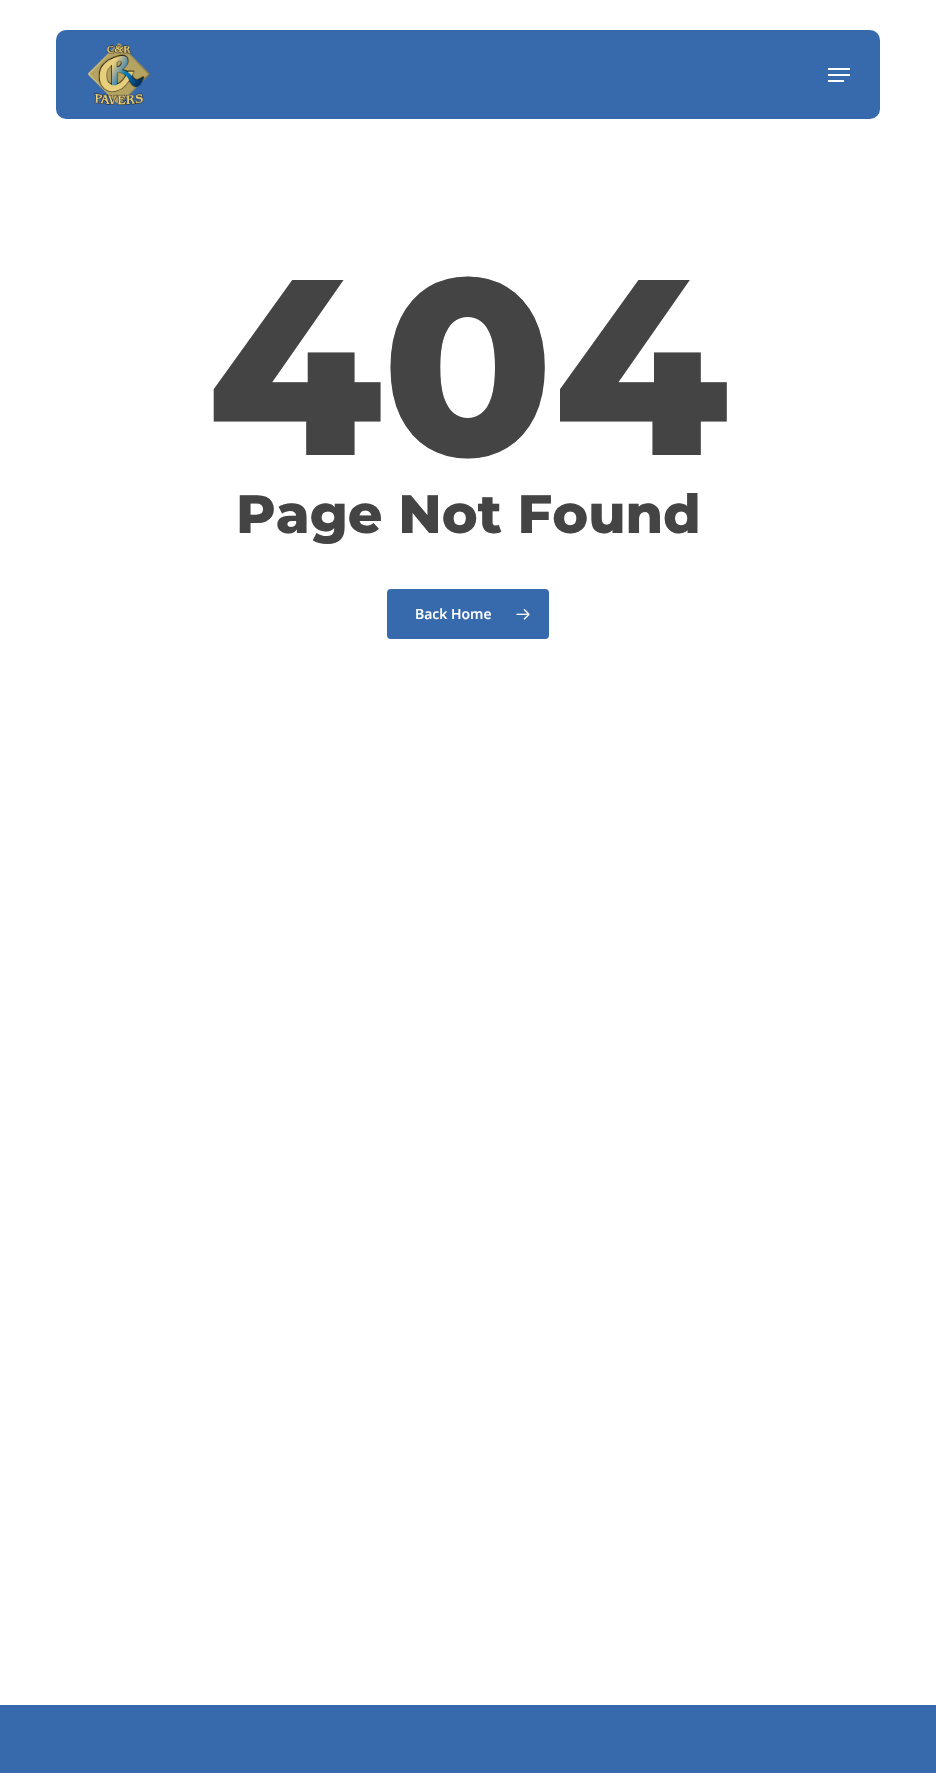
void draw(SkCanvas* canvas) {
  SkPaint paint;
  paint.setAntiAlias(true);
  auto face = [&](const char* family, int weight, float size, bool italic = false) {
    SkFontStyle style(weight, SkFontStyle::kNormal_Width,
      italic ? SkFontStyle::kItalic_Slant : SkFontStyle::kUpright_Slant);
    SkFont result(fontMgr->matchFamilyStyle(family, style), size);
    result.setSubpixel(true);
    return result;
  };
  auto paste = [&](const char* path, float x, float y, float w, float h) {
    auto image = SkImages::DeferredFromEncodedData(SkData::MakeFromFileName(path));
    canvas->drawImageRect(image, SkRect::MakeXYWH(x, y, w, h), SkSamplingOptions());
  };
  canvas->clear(0xffffffff);
  paint.setColor(0xff376aad);
  canvas->drawRoundRect(SkRect::MakeXYWH(56, 30, 824, 89), 10, 10, paint);
  paste("img/1.png", 87, 43, 63, 63);
  {
    const struct { float x, y, w, h; SkColor color; } items[] = {
      {828, 68, 22, 2, 0xffffffff},
      {828, 80, 16, 2, 0xffffffff},
      {828, 74, 22, 2, 0xffffffff},
    };
    for (auto [x, y, w, h, color] : items) {
      paint.setColor(color);
      canvas->drawRect(SkRect::MakeXYWH(x, y, w, h), paint);
    }
  }
  paint.setColor(0xff376aad);
  canvas->drawRoundRect(SkRect::MakeXYWH(387, 589, 162, 50), 4, 4, paint);
  paste("img/2.png", 516, 609, 14, 11);
  canvas->drawRect(SkRect::MakeXYWH(0, 1705, 936, 68), paint);
  auto f0 = face("Montserrat", 800, 250);
  paint.setColor(0xff444444);
  canvas->drawString("404", 207, 455, f0, paint);
  auto f1 = face("Montserrat", 800, 54);
  canvas->drawString("Page Not Found", 236, 533, f1, paint);
  auto f2 = face("Open Sans", 600, 14);
  paint.setColor(0xffffffff);
  canvas->drawString("Back Home", 415, 619, f2, paint);
}
